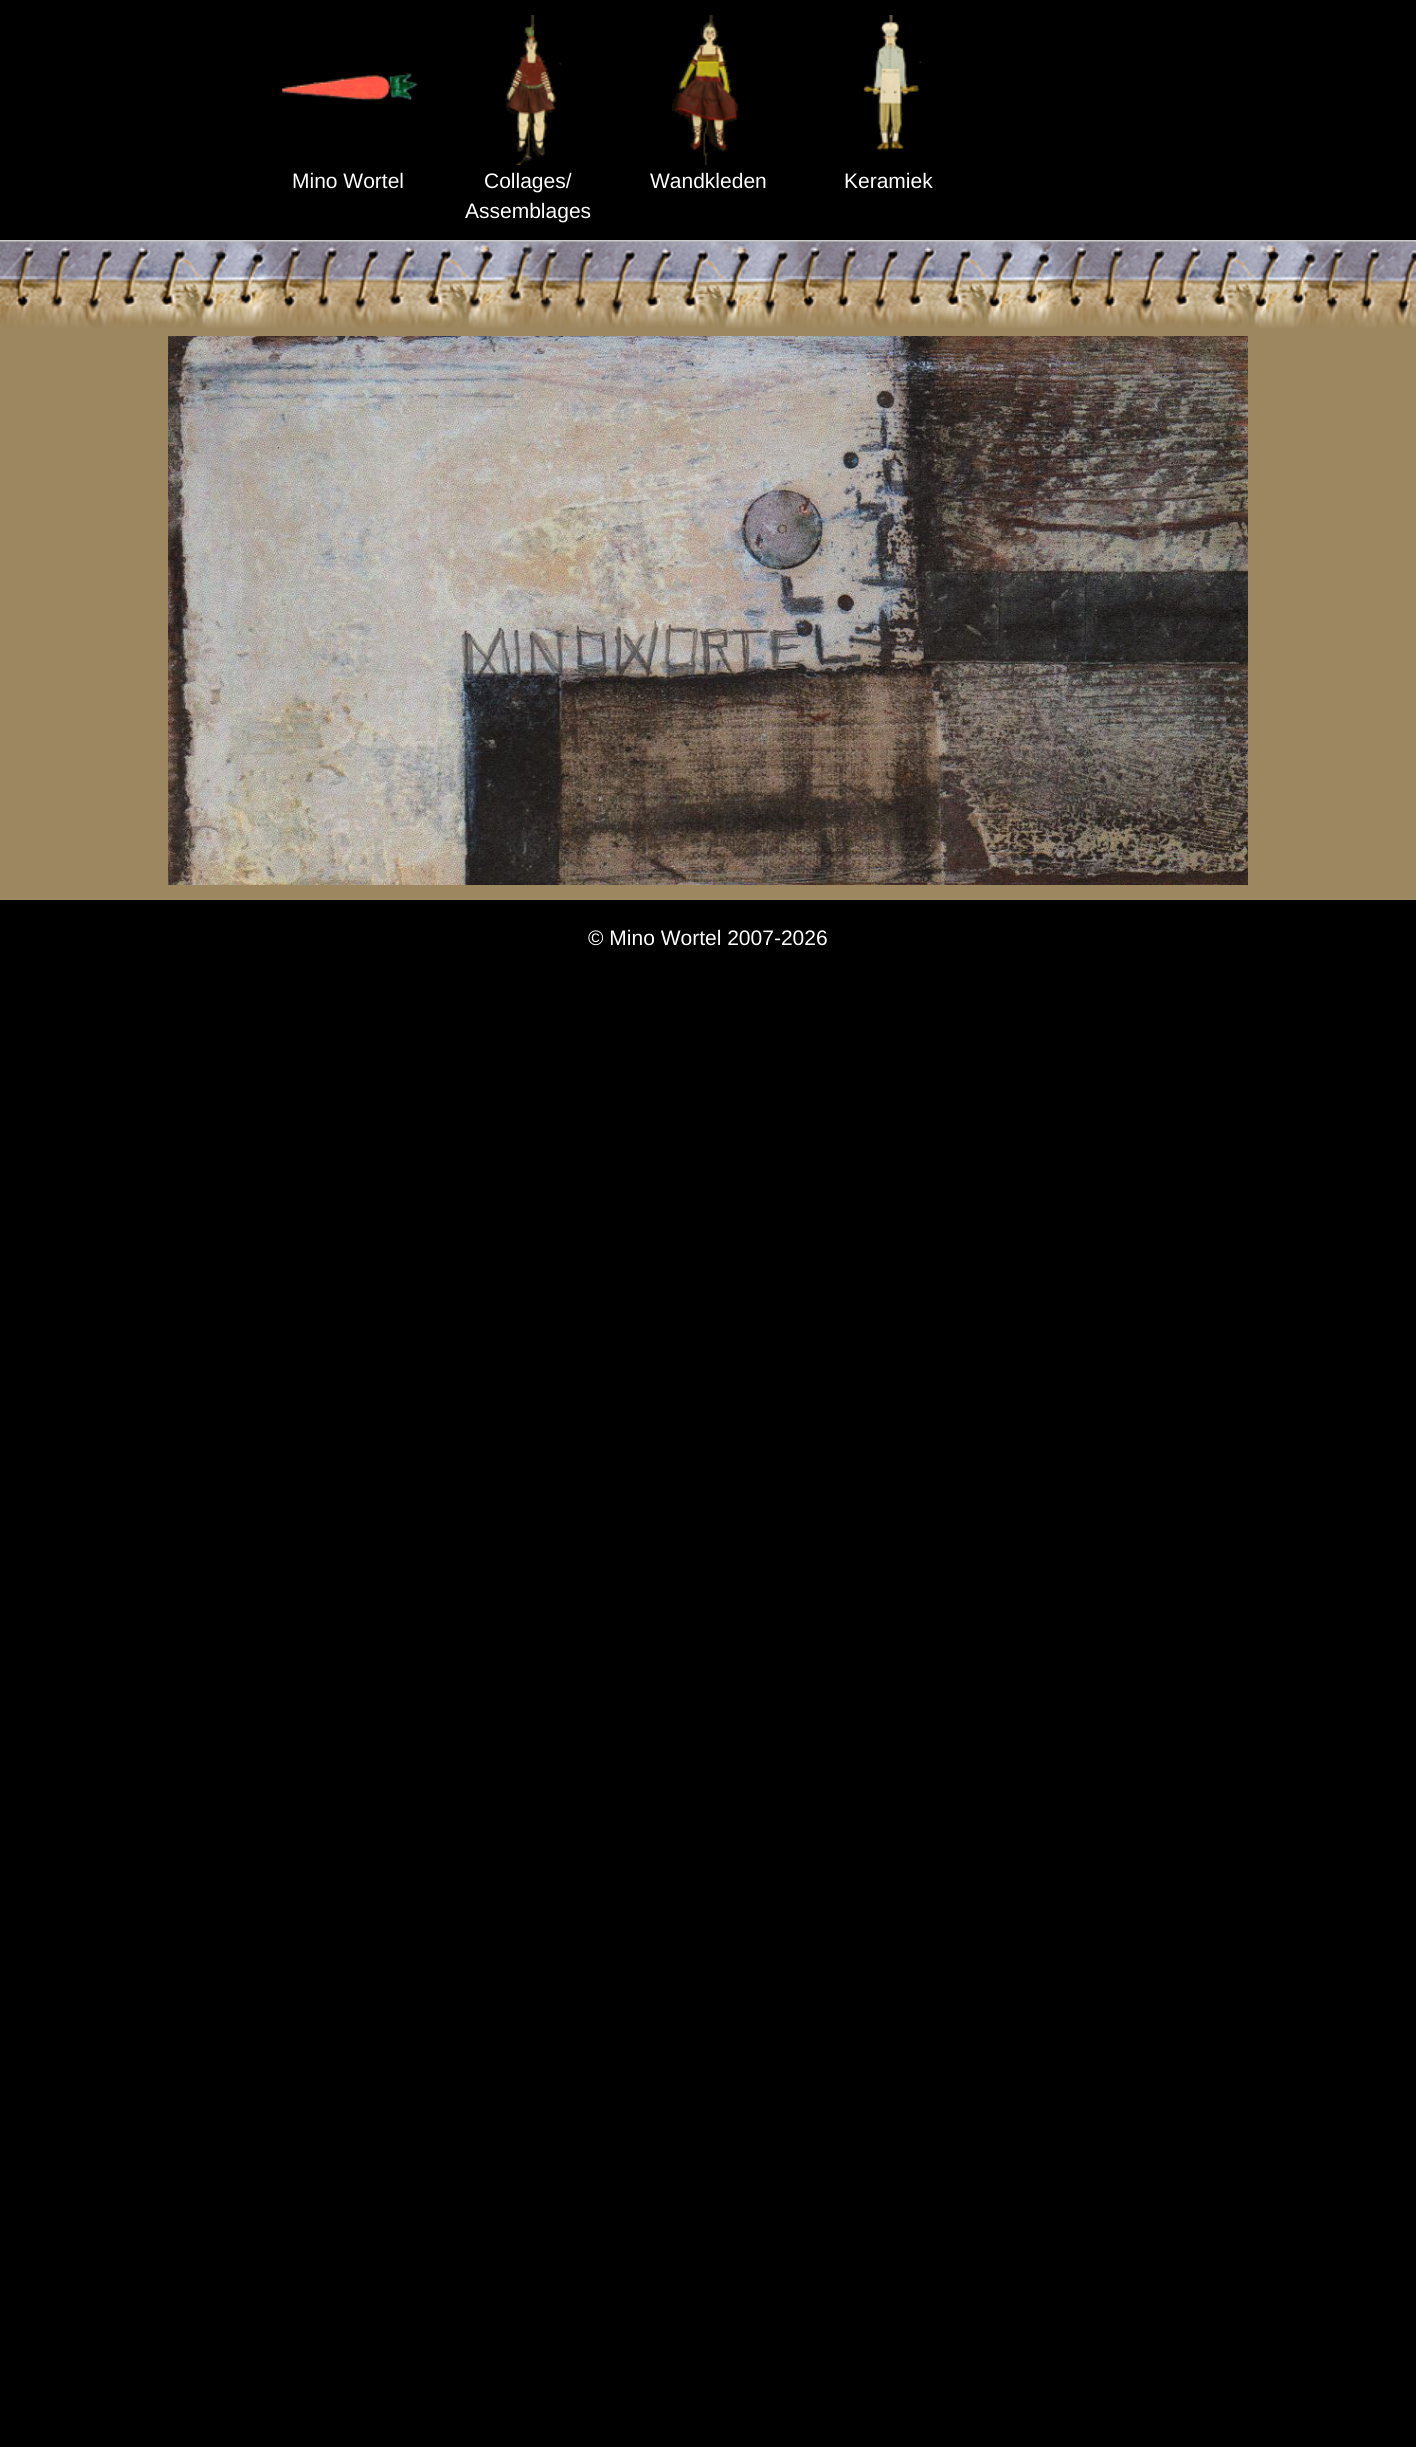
import math
import cairo

surface = cairo.ImageSurface(cairo.FORMAT_RGB24, 1416, 2447)
cr = cairo.Context(surface)
options = cairo.FontOptions()
options.set_hint_metrics(cairo.HINT_METRICS_OFF)
options.set_hint_style(cairo.HINT_STYLE_NONE)
cr.set_font_options(options)
cr.set_miter_limit(4)


def rgb(code):
    cr.set_source_rgb(*(v / 255 for v in bytes.fromhex(code[-6:])))


def image(path, x, y, w, h):
    cr.save()
    cr.set_source_surface(cairo.ImageSurface.create_from_png(path), x, y)
    cr.rectangle(x, y, w, h)
    cr.fill()
    cr.restore()


rgb("#000000")
cr.paint()
image("img/1.png", 281, 73, 137, 28)
image("img/2.png", 505, 15, 57, 150)
image("img/3.png", 672, 15, 66, 150)
image("img/4.png", 863, 15, 59, 136)
rgb("#9d8760")
cr.rectangle(0, 328, 1416, 572)
cr.fill()
image("img/5.png", 0, 240, 1416, 88)
image("img/6.png", 168, 336, 1080, 549)
cr.select_font_face("Liberation Sans")
cr.set_font_size(21)
rgb("#ffffff")
for x, y, s in [
    (292, 188, "Mino Wortel"),
    (484, 188, "Collages/"),
    (465, 218, "Assemblages"),
    (650, 188, "Wandkleden"),
    (844, 188, "Keramiek"),
    (588, 945, "© Mino Wortel 2007-2026"),
]:
    cr.move_to(x, y)
    cr.show_text(s)
surface.write_to_png("page.png")
